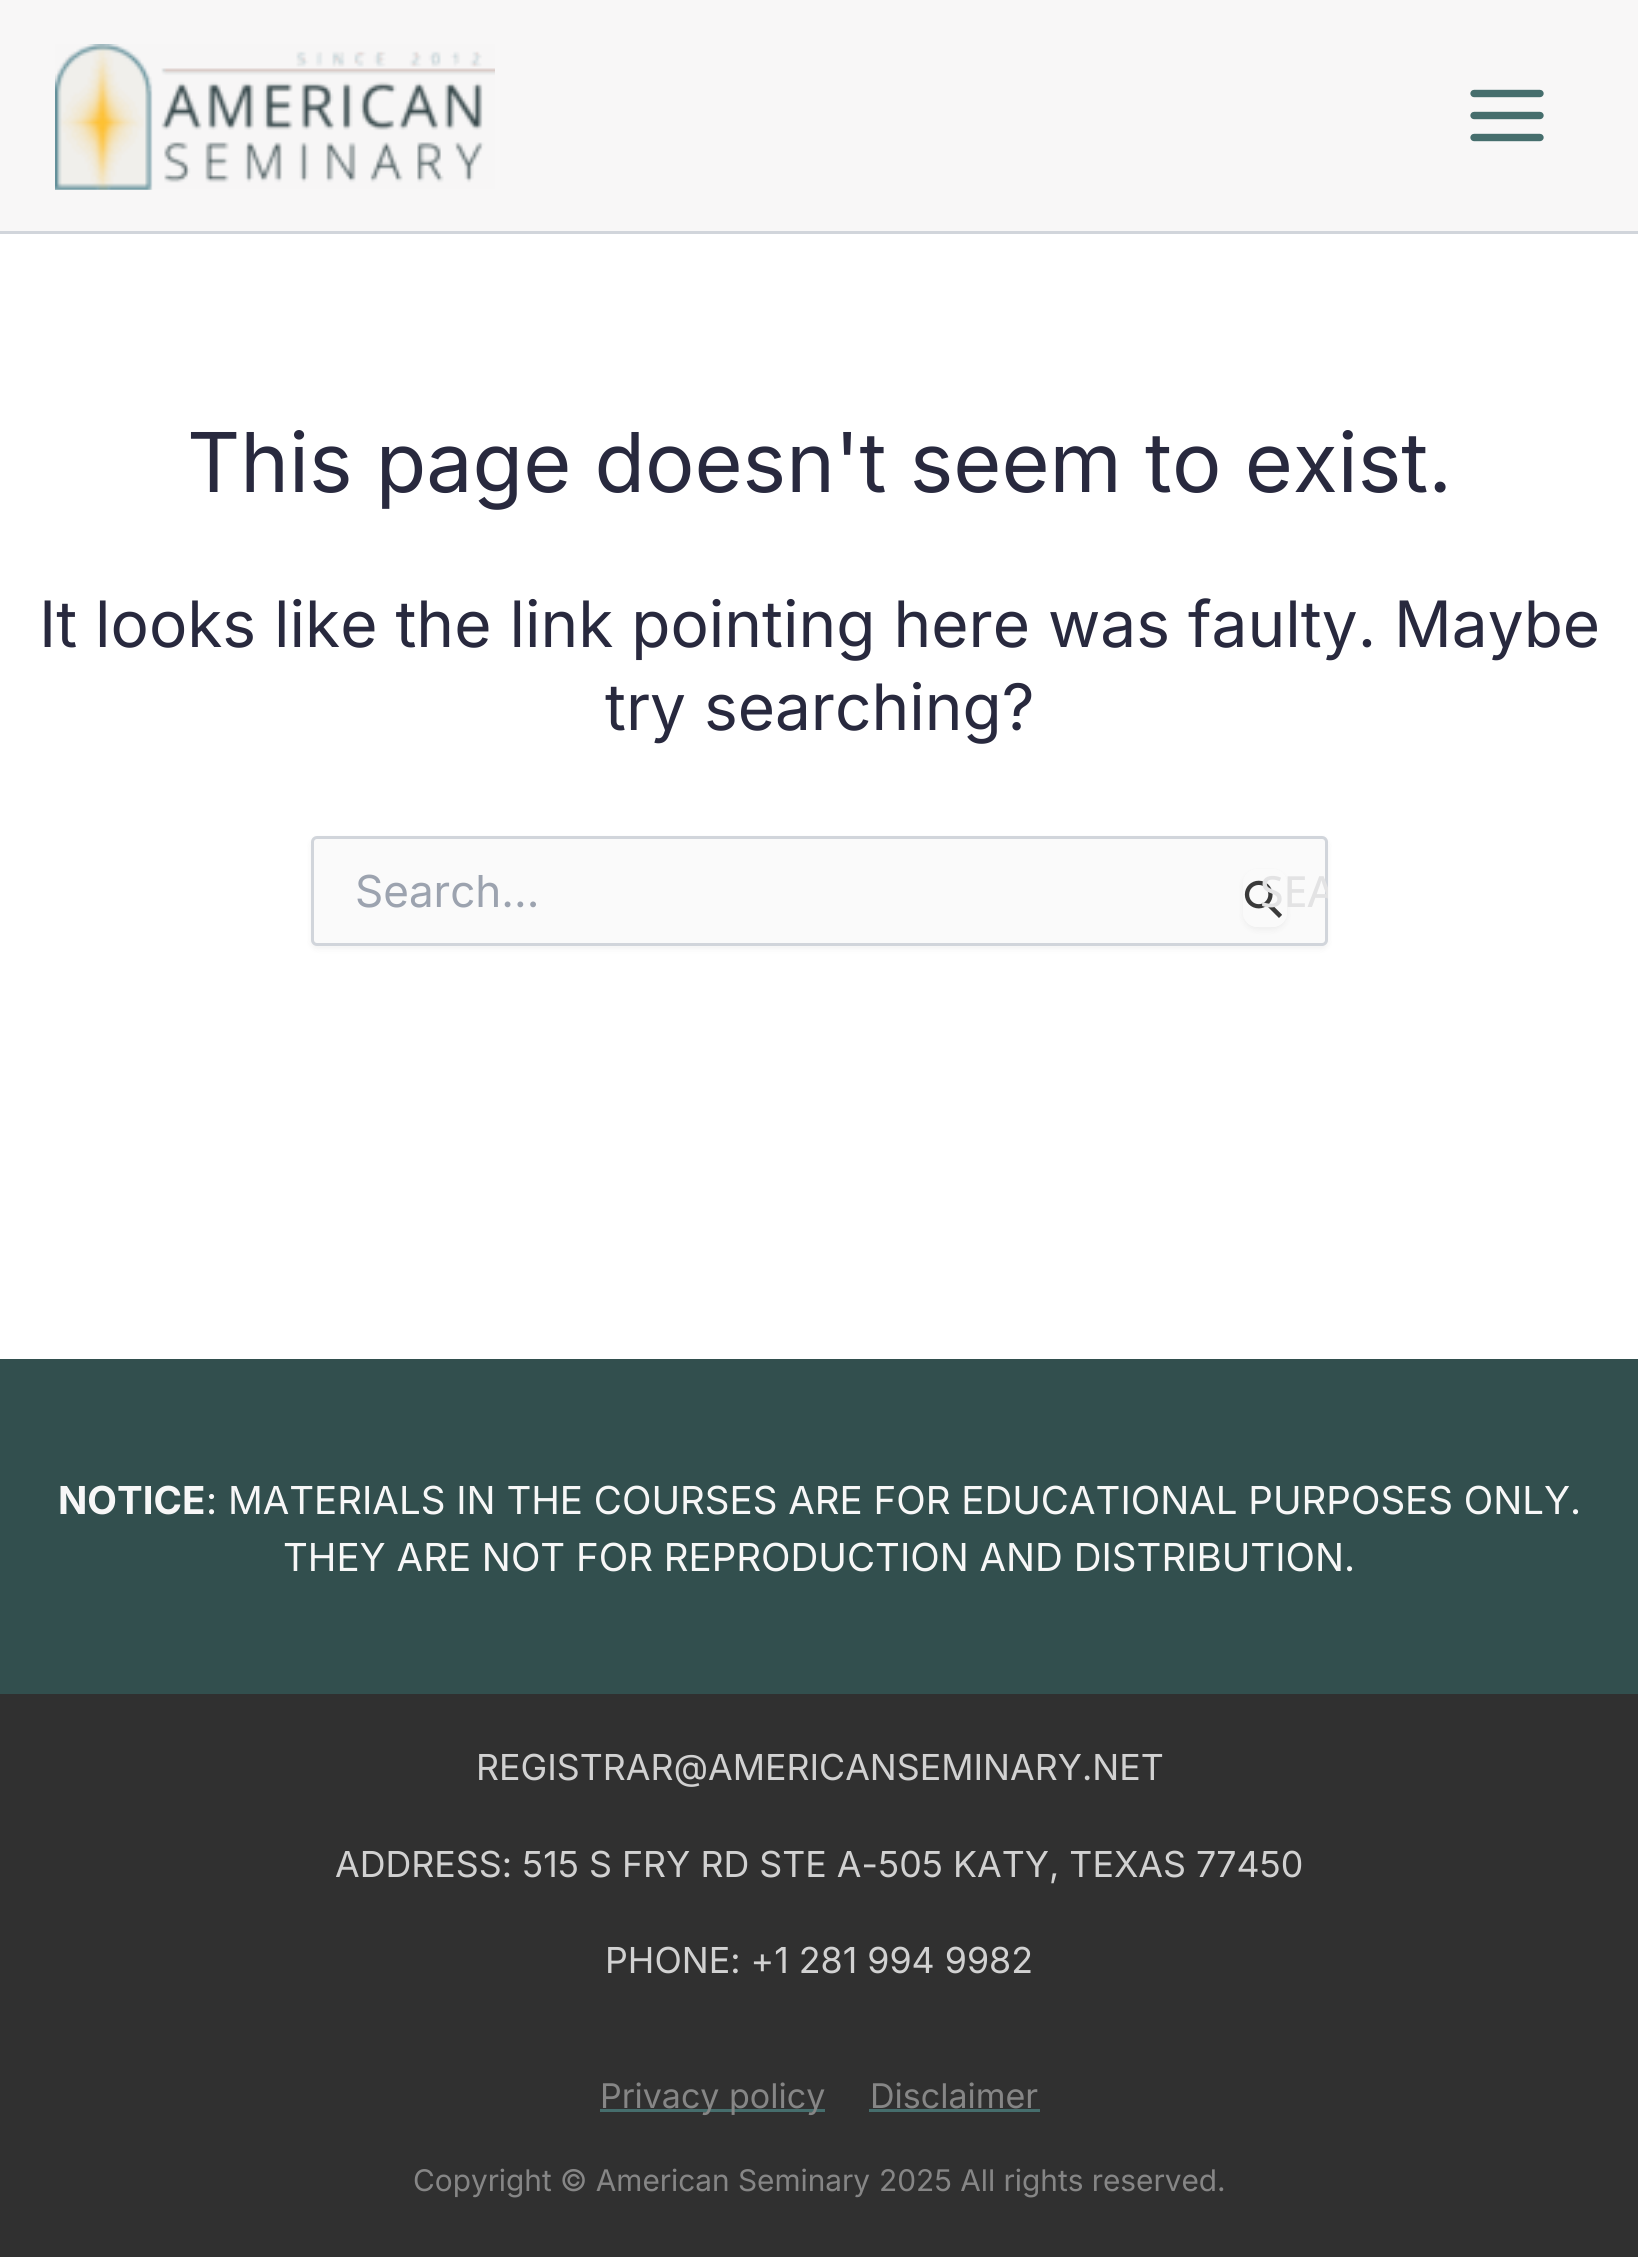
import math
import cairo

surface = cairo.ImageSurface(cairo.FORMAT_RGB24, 1638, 2257)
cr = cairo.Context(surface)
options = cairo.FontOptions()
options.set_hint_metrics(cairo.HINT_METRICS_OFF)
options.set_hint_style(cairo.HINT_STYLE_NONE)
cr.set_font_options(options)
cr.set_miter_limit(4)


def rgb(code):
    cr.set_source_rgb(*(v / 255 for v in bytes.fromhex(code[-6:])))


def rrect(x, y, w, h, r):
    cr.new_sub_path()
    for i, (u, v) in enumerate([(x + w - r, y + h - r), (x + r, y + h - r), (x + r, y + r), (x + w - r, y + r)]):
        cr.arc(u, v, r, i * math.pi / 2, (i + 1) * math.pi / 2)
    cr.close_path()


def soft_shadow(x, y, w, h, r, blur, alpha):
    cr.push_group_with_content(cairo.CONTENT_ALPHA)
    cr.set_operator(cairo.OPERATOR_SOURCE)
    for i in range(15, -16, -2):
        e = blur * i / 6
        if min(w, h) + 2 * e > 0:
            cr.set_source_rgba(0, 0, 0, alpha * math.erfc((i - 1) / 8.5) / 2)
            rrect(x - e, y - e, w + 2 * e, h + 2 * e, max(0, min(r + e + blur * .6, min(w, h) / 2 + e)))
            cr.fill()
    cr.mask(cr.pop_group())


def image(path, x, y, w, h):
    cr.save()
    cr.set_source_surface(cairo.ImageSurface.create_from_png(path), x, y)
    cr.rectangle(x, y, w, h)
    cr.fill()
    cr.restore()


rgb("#ffffff")
cr.paint()
rgb("#f8f7f7")
cr.rectangle(0, 0, 1638, 231)
cr.fill()
rgb("#d1d5db")
cr.rectangle(0, 231, 1638, 3)
cr.fill()
image("img/1.png", 55, 44, 440, 146)
image("img/2.png", 1470, 89, 74, 53)
rgb("#000000")
soft_shadow(311, 839, 1017, 110, 6, 3, 0.05)
rgb("#fafafa")
rrect(312.5, 837.5, 1014, 107, 4.5)
cr.fill_preserve()
rgb("#d1d5db")
cr.set_line_width(3)
cr.stroke()
cr.save()
cr.set_fill_rule(cairo.FILL_RULE_EVEN_ODD)
cr.new_path()
cr.move_to(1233, 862)
cr.line_to(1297, 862)
cr.line_to(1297, 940)
cr.line_to(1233, 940)
cr.close_path()
cr.move_to(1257, 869)
cr.line_to(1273, 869)
cr.curve_to(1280.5, 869, 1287, 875.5, 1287, 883)
cr.line_to(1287, 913)
cr.curve_to(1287, 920.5, 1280.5, 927, 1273, 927)
cr.line_to(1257, 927)
cr.curve_to(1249.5, 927, 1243, 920.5, 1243, 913)
cr.line_to(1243, 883)
cr.curve_to(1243, 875.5, 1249.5, 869, 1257, 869)
cr.close_path()
cr.clip()
rgb("#000000")
soft_shadow(1243, 872, 44, 58, 14, 3, 0.05)
cr.restore()
image("img/3.png", 1244, 880, 38, 38)
for x, y, w, h, color in [
    (0, 1359, 1638, 335, "#324f4e"),
    (0, 1694, 1638, 563, "#303030"),
    (600, 2109, 225, 3, "#466e6d"),
    (869, 2109, 171, 3, "#466e6d"),
]:
    rgb(color)
    cr.rectangle(x, y, w, h)
    cr.fill()
cr.select_font_face("Inter")
cr.set_font_size(82.5)
rgb("#28293e")
cr.move_to(187, 492)
cr.show_text("This page doesn't seem to exist.")
cr.set_font_size(63.95)
cr.move_to(39, 647)
cr.show_text("It looks like the link pointing here was faulty. Maybe")
cr.move_to(605, 730)
cr.show_text("try searching?")
cr.set_font_size(44)
rgb("#9ca3af")
cr.move_to(355, 907)
cr.show_text("Search...")
cr.save()
rrect(1205, 836, 123, 113, 6)
cr.clip()
cr.select_font_face("Open Sans Medium")
cr.set_font_size(43)
rgb("#e3e3e4")
cr.move_to(1260, 907)
cr.show_text("SEA")
cr.restore()
cr.select_font_face("Inter", cairo.FONT_SLANT_NORMAL, cairo.FONT_WEIGHT_BOLD)
cr.set_font_size(38.5)
rgb("#f7f7f7")
cr.move_to(58, 1514)
cr.show_text("NOTICE")
cr.select_font_face("Inter")
cr.move_to(206, 1514)
cr.show_text(": MATERIALS IN THE COURSES ARE FOR EDUCATIONAL PURPOSES ONLY.")
cr.move_to(283, 1571)
cr.show_text("THEY ARE NOT FOR REPRODUCTION AND DISTRIBUTION.")
cr.set_font_size(35.75)
rgb("#d1d1d1")
for x, y, s in [
    (476, 1780, "REGISTRAR@AMERICANSEMINARY.NET"),
    (335, 1877, "ADDRESS: 515 S FRY RD STE A-505 KATY, TEXAS 77450"),
    (605, 1973, "PHONE: +1 281 994 9982"),
]:
    cr.move_to(x, y)
    cr.show_text(s)
cr.set_font_size(34)
rgb("#868686")
cr.move_to(600, 2108)
cr.show_text("Privacy policy")
cr.move_to(870, 2108)
cr.show_text("Disclaimer")
cr.set_font_size(29.8)
cr.move_to(413, 2191)
cr.show_text("Copyright © American Seminary")
cr.move_to(879, 2191)
cr.show_text("2025 All rights reserved.")
surface.write_to_png("page.png")
